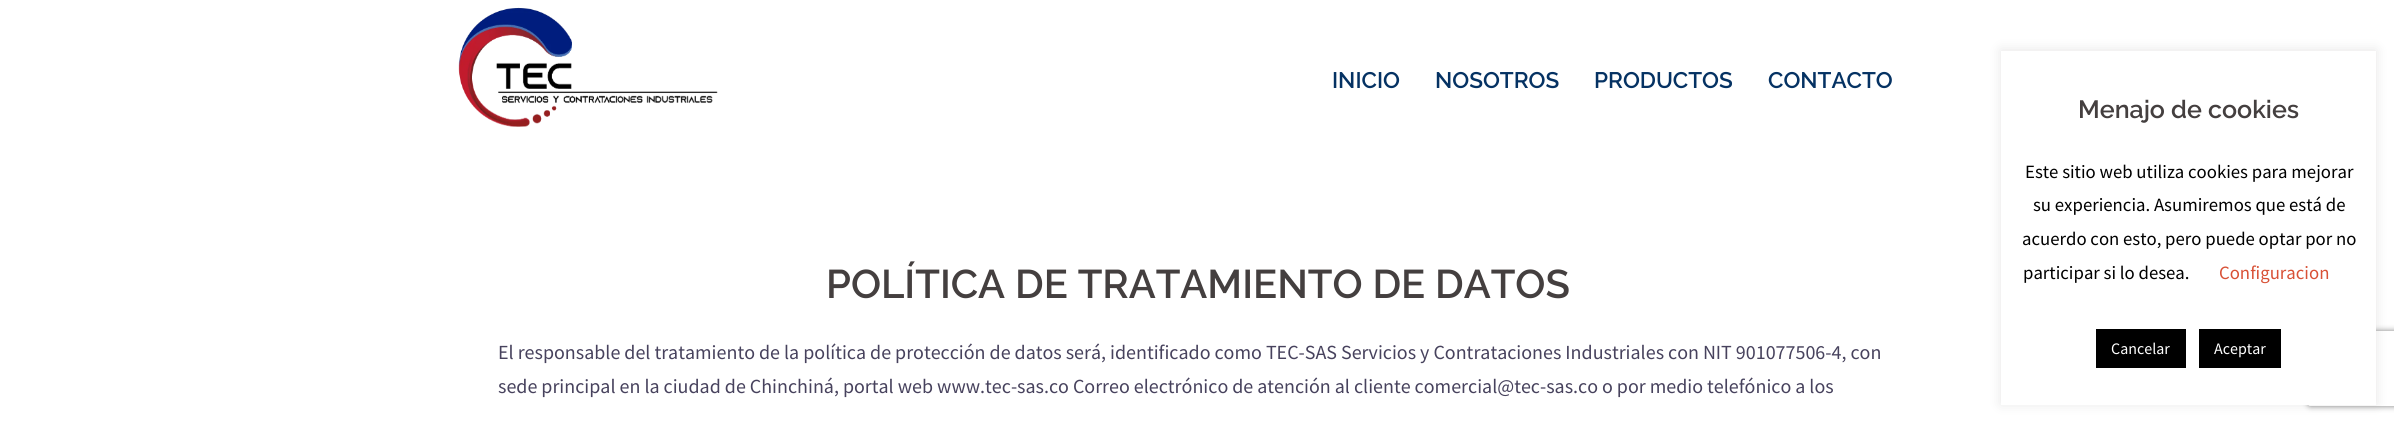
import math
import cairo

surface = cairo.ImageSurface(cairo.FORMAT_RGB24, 2394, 423)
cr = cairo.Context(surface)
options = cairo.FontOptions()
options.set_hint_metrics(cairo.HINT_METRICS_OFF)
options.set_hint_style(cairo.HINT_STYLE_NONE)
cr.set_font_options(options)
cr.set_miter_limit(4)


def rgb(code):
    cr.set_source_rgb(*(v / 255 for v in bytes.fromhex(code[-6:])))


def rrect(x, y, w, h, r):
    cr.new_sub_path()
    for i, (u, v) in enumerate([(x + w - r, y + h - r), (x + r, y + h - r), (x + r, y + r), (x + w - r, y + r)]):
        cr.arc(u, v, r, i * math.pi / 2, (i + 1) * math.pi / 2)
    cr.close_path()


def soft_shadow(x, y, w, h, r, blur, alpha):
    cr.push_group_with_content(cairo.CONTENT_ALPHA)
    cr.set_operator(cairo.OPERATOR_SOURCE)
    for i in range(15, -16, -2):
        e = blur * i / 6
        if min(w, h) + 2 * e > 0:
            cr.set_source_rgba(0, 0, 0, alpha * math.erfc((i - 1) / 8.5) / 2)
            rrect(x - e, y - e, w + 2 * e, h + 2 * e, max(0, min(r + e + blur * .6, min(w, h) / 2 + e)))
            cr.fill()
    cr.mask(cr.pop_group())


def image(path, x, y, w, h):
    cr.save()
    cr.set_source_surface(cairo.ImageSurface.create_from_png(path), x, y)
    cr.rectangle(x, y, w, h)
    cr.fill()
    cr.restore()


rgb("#ffffff")
cr.paint()
image("img/1.png", 458, 7, 260, 120)
rgb("#acabab")
soft_shadow(2001, 50, 375, 354, 0, 6, 0.3)
cr.save()
cr.set_fill_rule(cairo.FILL_RULE_EVEN_ODD)
cr.new_path()
cr.move_to(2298, 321)
cr.line_to(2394, 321)
cr.line_to(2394, 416)
cr.line_to(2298, 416)
cr.close_path()
cr.move_to(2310.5, 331)
cr.line_to(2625.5, 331)
cr.curve_to(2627, 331, 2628, 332, 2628, 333.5)
cr.line_to(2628, 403.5)
cr.curve_to(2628, 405, 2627, 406, 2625.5, 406)
cr.line_to(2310.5, 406)
cr.curve_to(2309, 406, 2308, 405, 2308, 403.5)
cr.line_to(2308, 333.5)
cr.curve_to(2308, 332, 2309, 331, 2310.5, 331)
cr.close_path()
cr.clip()
rgb("#808080")
soft_shadow(2308, 331, 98, 75, 2.5, 3, 1)
cr.restore()
for x, y, w, h, color in [
    (2001, 51, 375, 354, "#ffffff"),
    (2096, 329, 90, 39, "#000000"),
    (2199, 329, 82, 39, "#000000"),
]:
    rgb(color)
    cr.rectangle(x, y, w, h)
    cr.fill()
cr.select_font_face("Raleway SemiBold")
cr.set_font_size(22.5)
rgb("#053263")
for x, y, s in [
    (1332, 88, "INICIO"),
    (1435, 88, "NOSOTROS"),
    (1594, 88, "PRODUCTOS"),
    (1768, 88, "CONTACTO"),
]:
    cr.move_to(x, y)
    cr.show_text(s)
cr.set_font_size(40)
rgb("#443f3f")
cr.move_to(826, 298)
cr.show_text("POLÍTICA DE TRATAMIENTO DE DATOS")
cr.select_font_face("Source Sans Pro")
cr.set_font_size(20)
rgb("#47425d")
cr.move_to(498, 359)
cr.show_text("El responsable del tratamiento de la política de protección de datos será, identificado como TEC-SAS Servicios y Contrataciones Industriales con NIT 901077506-4, con")
cr.move_to(498, 393)
cr.show_text("sede principal en la ciudad de Chinchiná, portal web www.tec-sas.co Correo electrónico de atención al cliente comercial@tec-sas.co o por medio telefónico a los")
cr.select_font_face("Raleway SemiBold")
cr.set_font_size(25)
rgb("#443f3f")
cr.move_to(2078, 118)
cr.show_text("Menajo de cookies")
cr.select_font_face("Source Sans Pro")
cr.set_font_size(18.75)
rgb("#000000")
for x, y, s in [
    (2025, 178, "Este sitio web utiliza cookies para mejorar"),
    (2033, 211, "su experiencia. Asumiremos que está de"),
    (2022, 245, "acuerdo con esto, pero puede optar por no"),
    (2023, 279, "participar si lo desea."),
]:
    cr.move_to(x, y)
    cr.show_text(s)
rgb("#d85136")
cr.move_to(2219, 279)
cr.show_text("Configuracion")
cr.set_font_size(16)
rgb("#ffffff")
cr.move_to(2111, 354)
cr.show_text("Cancelar")
cr.move_to(2214, 354)
cr.show_text("Aceptar")
surface.write_to_png("page.png")
